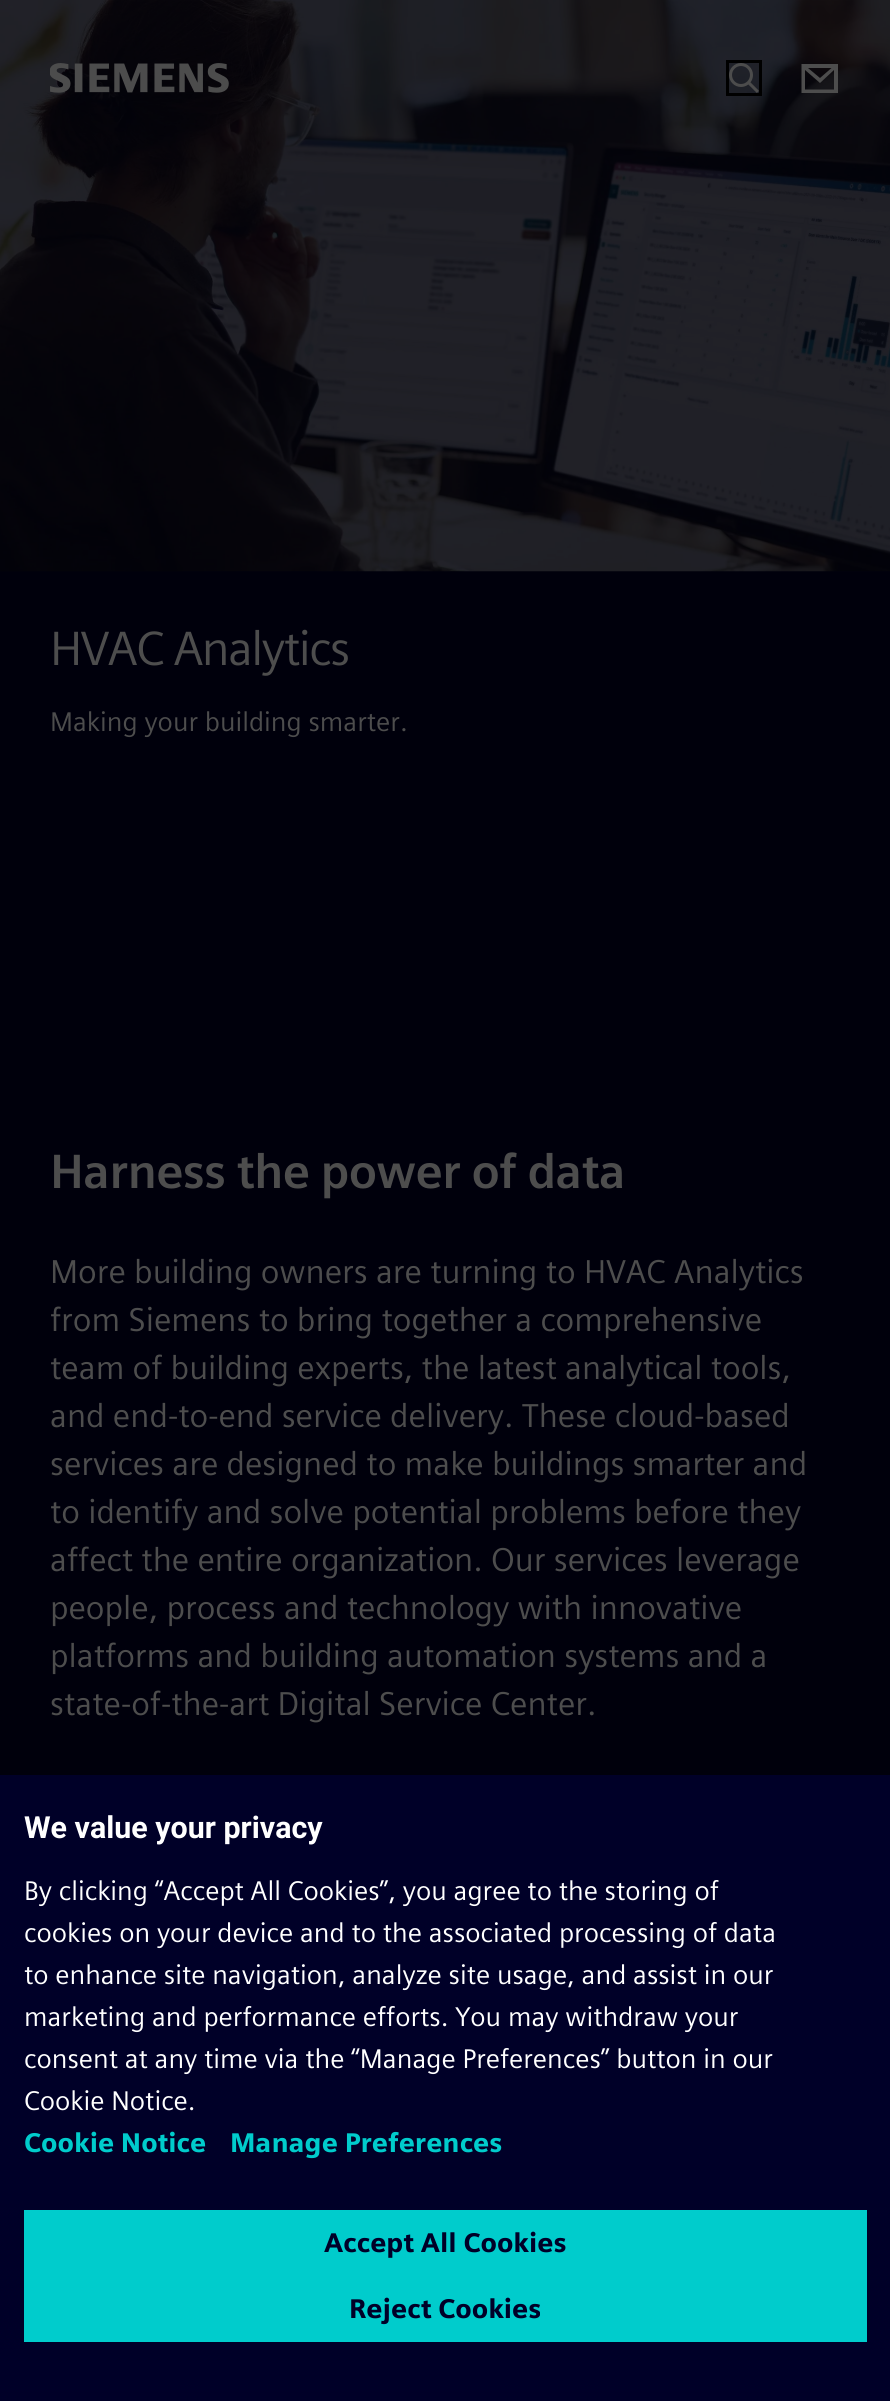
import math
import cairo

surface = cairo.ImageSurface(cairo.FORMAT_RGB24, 890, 2401)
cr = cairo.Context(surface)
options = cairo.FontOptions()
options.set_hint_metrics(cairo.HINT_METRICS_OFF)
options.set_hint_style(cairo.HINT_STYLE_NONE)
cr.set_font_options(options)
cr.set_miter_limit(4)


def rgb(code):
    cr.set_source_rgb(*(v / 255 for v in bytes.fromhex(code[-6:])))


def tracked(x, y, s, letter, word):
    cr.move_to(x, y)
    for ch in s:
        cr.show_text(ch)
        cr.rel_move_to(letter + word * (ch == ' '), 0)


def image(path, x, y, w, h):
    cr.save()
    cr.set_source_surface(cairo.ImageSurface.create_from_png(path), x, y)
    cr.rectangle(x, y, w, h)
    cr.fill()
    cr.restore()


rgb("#00000c")
cr.paint()
image("img/3.png", 0, 0, 890, 572)
image("img/1.png", 50, 63, 179, 30)
image("img/2.png", 729, 63, 30, 30)
cr.rectangle(727.5, 61.5, 33, 33)
rgb("#000000")
cr.set_line_width(3)
cr.stroke()
rgb("#4d4d4d")
cr.set_fill_rule(cairo.FILL_RULE_EVEN_ODD)
cr.new_path()
cr.move_to(801.5, 64)
cr.line_to(801.5, 93)
cr.line_to(838, 93)
cr.line_to(838, 64)
cr.close_path()
cr.move_to(831.5, 68)
cr.line_to(820, 78)
cr.line_to(808, 68)
cr.close_path()
cr.move_to(805, 70)
cr.line_to(805, 89.5)
cr.line_to(834, 89.5)
cr.line_to(834, 70)
cr.line_to(820, 83)
cr.close_path()
cr.fill()
rgb("#000028")
cr.rectangle(0, 1775, 890, 626)
cr.fill()
rgb("#00cccc")
cr.rectangle(24, 2210, 843, 132)
cr.fill()
cr.select_font_face("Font")
cr.set_font_size(48)
rgb("#4d4d4d")
tracked(50, 665, "HVAC Analytics", -1.5, 0)
cr.set_font_size(27)
cr.move_to(50, 731)
cr.show_text("Making your building smarter.")
cr.select_font_face("Font SemiBold")
cr.set_font_size(48)
tracked(50, 1188, "Harness the power of data", -0.75, 0)
cr.select_font_face("Font")
cr.set_font_size(33)
for x, y, s in [
    (50, 1283, "More building owners are turning to HVAC Analytics"),
    (50, 1331, "from Siemens to bring together a comprehensive"),
    (50, 1379, "team of building experts, the latest analytical tools,"),
    (50, 1427, "and end-to-end service delivery. These cloud-based"),
    (50, 1475, "services are designed to make buildings smarter and"),
    (50, 1523, "to identify and solve potential problems before they"),
    (50, 1571, "affect the entire organization. Our services leverage"),
    (50, 1619, "people, process and technology with innovative"),
    (50, 1667, "platforms and building automation systems and a"),
    (50, 1715, "state-of-the-art Digital Service Center."),
]:
    cr.move_to(x, y)
    cr.show_text(s)
cr.select_font_face("Roboto", cairo.FONT_SLANT_NORMAL, cairo.FONT_WEIGHT_BOLD)
cr.set_font_size(30.4)
rgb("#ffffff")
cr.move_to(24, 1838)
cr.show_text("We value your privacy")
cr.select_font_face("Font")
cr.set_font_size(27)
for x, y, s in [
    (24, 1900, "By clicking “Accept All Cookies”, you agree to the storing of"),
    (24, 1942, "cookies on your device and to the associated processing of data"),
    (24, 1984, "to enhance site navigation, analyze site usage, and assist in our"),
    (24, 2026, "marketing and performance efforts. You may withdraw your"),
    (24, 2068, "consent at any time via the “Manage Preferences” button in our"),
    (24, 2110, "Cookie Notice."),
]:
    cr.move_to(x, y)
    cr.show_text(s)
cr.select_font_face("Font", cairo.FONT_SLANT_NORMAL, cairo.FONT_WEIGHT_BOLD)
rgb("#00cccc")
cr.move_to(24, 2152)
cr.show_text("Cookie Notice")
cr.move_to(230, 2152)
cr.show_text("Manage Preferences")
rgb("#000028")
cr.move_to(324, 2252)
cr.show_text("Accept All Cookies")
cr.move_to(349, 2318)
cr.show_text("Reject Cookies")
surface.write_to_png("page.png")
